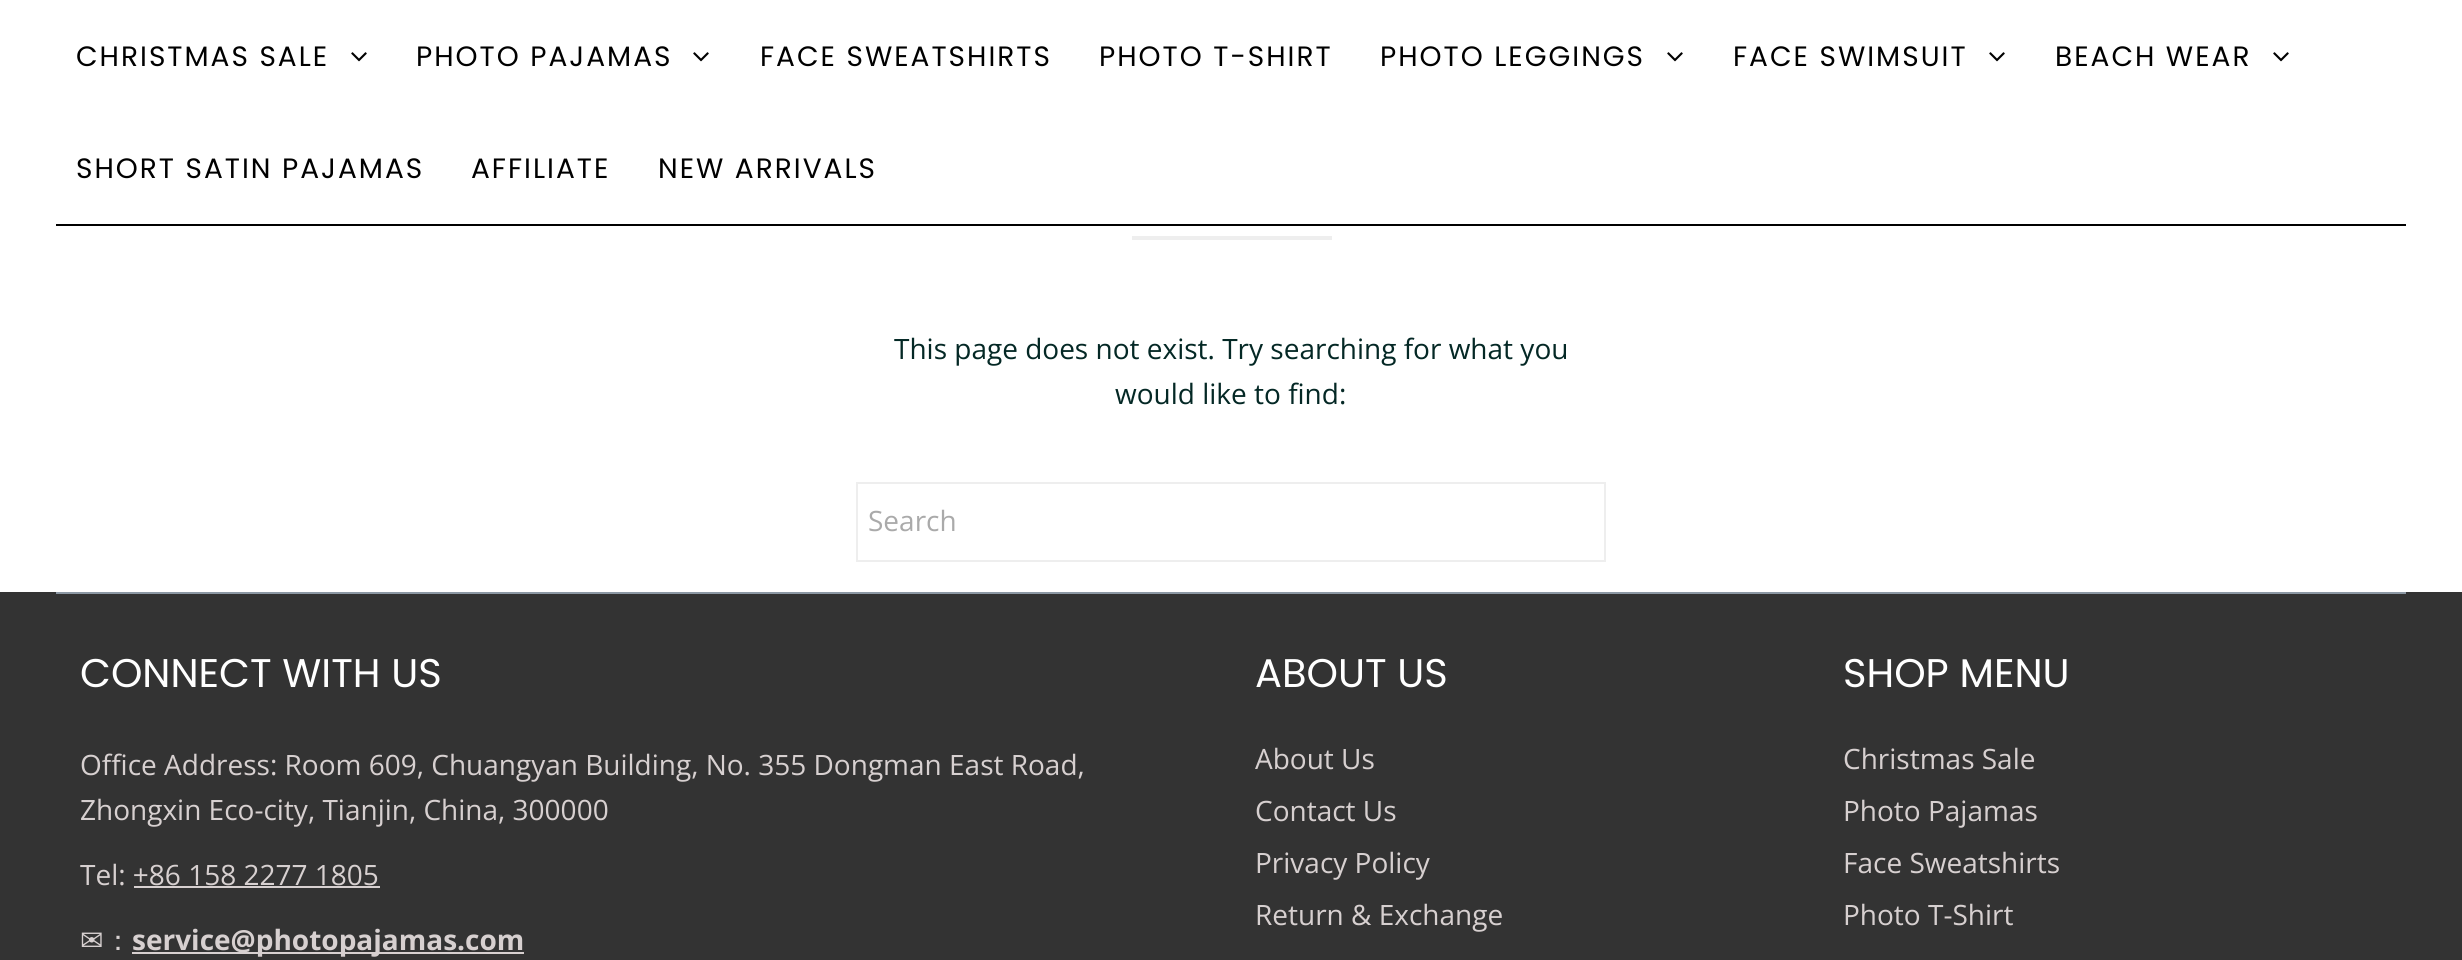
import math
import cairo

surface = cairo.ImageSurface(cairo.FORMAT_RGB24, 2462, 960)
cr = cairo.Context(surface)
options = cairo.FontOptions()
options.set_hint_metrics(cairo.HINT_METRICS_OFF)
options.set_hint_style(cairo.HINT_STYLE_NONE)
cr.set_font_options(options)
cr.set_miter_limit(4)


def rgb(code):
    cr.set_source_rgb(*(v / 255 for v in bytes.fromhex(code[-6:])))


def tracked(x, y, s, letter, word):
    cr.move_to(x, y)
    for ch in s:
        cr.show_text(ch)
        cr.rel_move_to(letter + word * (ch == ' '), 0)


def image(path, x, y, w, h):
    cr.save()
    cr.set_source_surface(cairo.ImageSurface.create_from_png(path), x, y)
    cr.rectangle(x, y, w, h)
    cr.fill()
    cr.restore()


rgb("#ffffff")
cr.paint()
rgb("#000000")
cr.rectangle(56, 224, 2350, 2)
cr.fill()
image("img/1.png", 351, 52, 16, 10)
image("img/1.png", 693, 52, 16, 10)
image("img/1.png", 1667, 52, 16, 10)
image("img/1.png", 1989, 52, 16, 10)
image("img/1.png", 2273, 52, 16, 10)
rgb("#eeeeee")
cr.rectangle(1132, 236, 200, 4)
cr.fill()
cr.rectangle(857, 483, 748, 78)
cr.stroke()
for x, y, w, h, color in [
    (0, 592, 2462, 368, "#333333"),
    (56, 592, 2350, 2, "#8c98a4"),
    (134, 886, 246, 2, "#d7d0d0"),
    (132, 952, 392, 2, "#d7d0d0"),
]:
    rgb(color)
    cr.rectangle(x, y, w, h)
    cr.fill()
cr.select_font_face("Poppins")
cr.set_font_size(28)
rgb("#000000")
for x, y, s in [
    (76, 66, "CHRISTMAS SALE"),
    (416, 66, "PHOTO PAJAMAS"),
    (760, 66, "FACE SWEATSHIRTS"),
    (1099, 66, "PHOTO T-SHIRT"),
    (1380, 66, "PHOTO LEGGINGS"),
    (1733, 66, "FACE SWIMSUIT"),
    (2055, 66, "BEACH WEAR"),
    (76, 178, "SHORT SATIN PAJAMAS"),
    (471, 178, "AFFILIATE"),
    (658, 178, "NEW ARRIVALS"),
]:
    tracked(x, y, s, 2, 0)
cr.select_font_face("Open Sans")
rgb("#042825")
cr.move_to(894, 359)
cr.show_text("This page does not exist. Try searching for what you")
cr.move_to(1115, 404)
cr.show_text("would like to find:")
rgb("#aaaaaa")
cr.move_to(868, 531)
cr.show_text("Search")
cr.select_font_face("Poppins")
cr.set_font_size(40)
rgb("#ffffff")
cr.move_to(80, 687)
cr.show_text("CONNECT WITH US")
cr.select_font_face("Open Sans")
cr.set_font_size(28)
rgb("#d7d0d0")
for x, y, s in [
    (80, 775, "Office Address: Room 609, Chuangyan Building, No. 355 Dongman East Road,"),
    (80, 820, "Zhongxin Eco-city, Tianjin, China, 300000"),
    (80, 885, "Tel: +86 158 2277 1805"),
]:
    cr.move_to(x, y)
    cr.show_text(s)
cr.select_font_face("DejaVu Sans")
cr.move_to(80, 950)
cr.show_text("✉")
cr.select_font_face("WenQuanYi Zen Hei Medium")
cr.move_to(104, 950)
cr.show_text("：")
cr.select_font_face("Open Sans", cairo.FONT_SLANT_NORMAL, cairo.FONT_WEIGHT_BOLD)
cr.move_to(132, 950)
cr.show_text("service@photopajamas.com")
cr.select_font_face("Poppins")
cr.set_font_size(40)
rgb("#ffffff")
cr.move_to(1255, 687)
cr.show_text("ABOUT US")
cr.select_font_face("Open Sans")
cr.set_font_size(28)
rgb("#d7d0d0")
for x, y, s in [
    (1255, 769, "About Us"),
    (1255, 821, "Contact Us"),
    (1255, 873, "Privacy Policy"),
    (1255, 925, "Return & Exchange"),
]:
    cr.move_to(x, y)
    cr.show_text(s)
cr.select_font_face("Poppins")
cr.set_font_size(40)
rgb("#ffffff")
cr.move_to(1843, 687)
cr.show_text("SHOP MENU")
cr.select_font_face("Open Sans")
cr.set_font_size(28)
rgb("#d7d0d0")
for x, y, s in [
    (1843, 769, "Christmas Sale"),
    (1843, 821, "Photo Pajamas"),
    (1843, 873, "Face Sweatshirts"),
    (1843, 925, "Photo T-Shirt"),
]:
    cr.move_to(x, y)
    cr.show_text(s)
surface.write_to_png("page.png")
